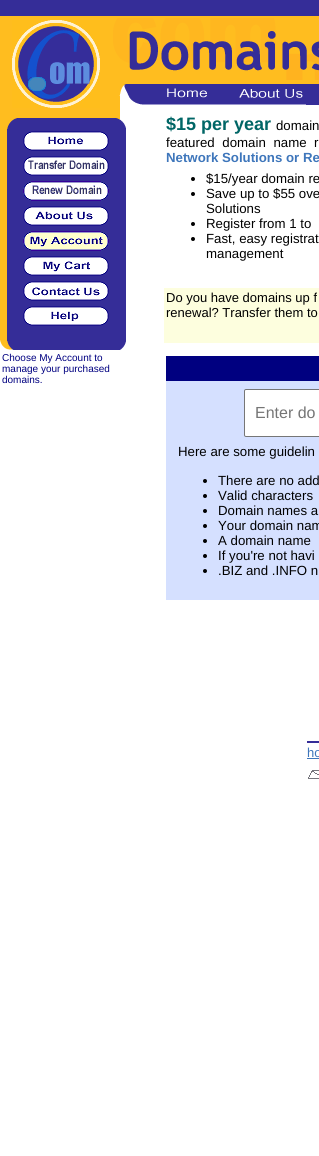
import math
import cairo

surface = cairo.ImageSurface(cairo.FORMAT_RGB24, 319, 1156)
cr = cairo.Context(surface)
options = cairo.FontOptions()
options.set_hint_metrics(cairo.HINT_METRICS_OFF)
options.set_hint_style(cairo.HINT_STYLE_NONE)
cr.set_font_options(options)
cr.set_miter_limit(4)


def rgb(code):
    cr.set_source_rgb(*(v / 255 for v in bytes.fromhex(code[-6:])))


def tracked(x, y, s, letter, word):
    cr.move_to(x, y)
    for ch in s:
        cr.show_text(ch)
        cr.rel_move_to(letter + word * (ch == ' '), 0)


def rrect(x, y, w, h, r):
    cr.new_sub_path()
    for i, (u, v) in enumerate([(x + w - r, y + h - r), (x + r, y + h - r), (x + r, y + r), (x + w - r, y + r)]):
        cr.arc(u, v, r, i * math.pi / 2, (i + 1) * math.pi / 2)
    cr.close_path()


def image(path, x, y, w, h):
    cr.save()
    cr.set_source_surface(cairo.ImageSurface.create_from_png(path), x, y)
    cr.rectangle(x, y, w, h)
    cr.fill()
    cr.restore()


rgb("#ffffff")
cr.paint()
rgb("#352d98")
cr.rectangle(0, 0, 319, 16)
cr.fill()
rgb("#ffbd1f")
cr.rectangle(0, 16, 113, 95)
cr.fill()
image("img/1.png", 12, 20, 88, 88)
cr.rectangle(113, 16, 206, 68)
cr.fill()
image("img/2.png", 113, 18, 206, 62)
image("img/3.png", 113, 84, 97, 27)
image("img/4.png", 210, 84, 96, 21)
rgb("#352d98")
cr.rectangle(306, 84, 13, 21)
cr.fill()
rgb("#ffbd1f")
cr.rectangle(0, 131, 7, 200)
cr.fill()
image("img/5.png", 0, 111, 126, 20)
rgb("#352d98")
cr.rectangle(7, 131, 119, 200)
cr.fill()
image("img/6.png", 23, 131, 86, 20)
image("img/7.png", 23, 156, 86, 20)
image("img/8.png", 23, 181, 86, 20)
image("img/9.png", 23, 206, 86, 20)
image("img/10.png", 23, 231, 86, 20)
image("img/11.png", 23, 256, 86, 20)
image("img/12.png", 23, 281, 86, 20)
image("img/13.png", 23, 306, 86, 20)
image("img/14.png", 0, 331, 126, 19)
rgb("#000000")
cr.arc(193, 179, 2, 0, 2 * math.pi)
cr.fill()
cr.arc(193, 194, 2, 0, 2 * math.pi)
cr.fill()
cr.arc(193, 224, 2, 0, 2 * math.pi)
cr.fill()
cr.arc(193, 239, 2, 0, 2 * math.pi)
cr.fill()
for x, y, w, h, color in [
    (164, 288, 155, 55, "#fdfede"),
    (166, 381, 153, 219, "#d5e0ff"),
    (166, 356, 153, 25, "#000080"),
]:
    rgb(color)
    cr.rectangle(x, y, w, h)
    cr.fill()
rgb("#ffffff")
rrect(244.5, 389.5, 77, 47, 1.5)
cr.fill_preserve()
rgb("#767676")
cr.set_line_width(1)
cr.stroke()
rgb("#000000")
cr.arc(205, 481, 2, 0, 2 * math.pi)
cr.fill()
cr.arc(205, 496, 2, 0, 2 * math.pi)
cr.fill()
cr.arc(205, 511, 2, 0, 2 * math.pi)
cr.fill()
cr.arc(205, 526, 2, 0, 2 * math.pi)
cr.fill()
cr.arc(205, 541, 2, 0, 2 * math.pi)
cr.fill()
cr.arc(205, 556, 2, 0, 2 * math.pi)
cr.fill()
cr.arc(205, 571, 2, 0, 2 * math.pi)
cr.fill()
rgb("#352d98")
cr.rectangle(307, 741, 12, 2)
cr.fill()
rgb("#3e76bb")
cr.rectangle(307, 758, 12, 1)
cr.fill()
image("img/15.png", 308, 770, 11, 9)
cr.select_font_face("Liberation Sans")
cr.set_font_size(10)
rgb("#000080")
for x, y, s in [
    (2, 361, "Choose My Account to"),
    (2, 372, "manage your purchased"),
    (2, 383, "domains."),
]:
    cr.move_to(x, y)
    cr.show_text(s)
cr.select_font_face("Liberation Sans", cairo.FONT_SLANT_NORMAL, cairo.FONT_WEIGHT_BOLD)
cr.set_font_size(18)
rgb("#006666")
cr.move_to(166, 130)
cr.show_text("$15 per year")
cr.select_font_face("Liberation Sans")
cr.set_font_size(13.25)
rgb("#000000")
cr.move_to(276, 130)
cr.show_text("domain")
tracked(166, 147, "featured domain name", 0, 4)
tracked(314, 147, "r", 0, 4)
cr.select_font_face("Liberation Sans", cairo.FONT_SLANT_NORMAL, cairo.FONT_WEIGHT_BOLD)
rgb("#3e76bb")
cr.move_to(166, 162)
cr.show_text("Network Solutions or Re")
cr.select_font_face("Liberation Sans")
rgb("#000000")
for x, y, s in [
    (206, 183, "$15/year domain re"),
    (206, 198, "Save up to $55 ove"),
    (206, 213, "Solutions"),
    (206, 228, "Register from 1 to"),
    (206, 243, "Fast, easy registrat"),
    (206, 258, "management"),
]:
    cr.move_to(x, y)
    cr.show_text(s)
cr.set_font_size(13)
cr.move_to(166, 302)
cr.show_text("Do you have domains up f")
cr.move_to(166, 317)
cr.show_text("renewal? Transfer them to")
cr.set_font_size(16)
rgb("#757575")
cr.move_to(255, 418)
cr.show_text("Enter do")
cr.set_font_size(13.25)
rgb("#000000")
for x, y, s in [
    (178, 456, "Here are some guidelin"),
    (218, 485, "There are no add"),
    (218, 500, "Valid characters"),
    (218, 515, "Domain names a"),
    (218, 530, "Your domain nam"),
    (218, 545, "A domain name"),
    (218, 560, "If you're not havi"),
    (218, 575, ".BIZ and .INFO n"),
]:
    cr.move_to(x, y)
    cr.show_text(s)
cr.set_font_size(13)
rgb("#3e76bb")
cr.move_to(307, 757)
cr.show_text("ho")
surface.write_to_png("page.png")
